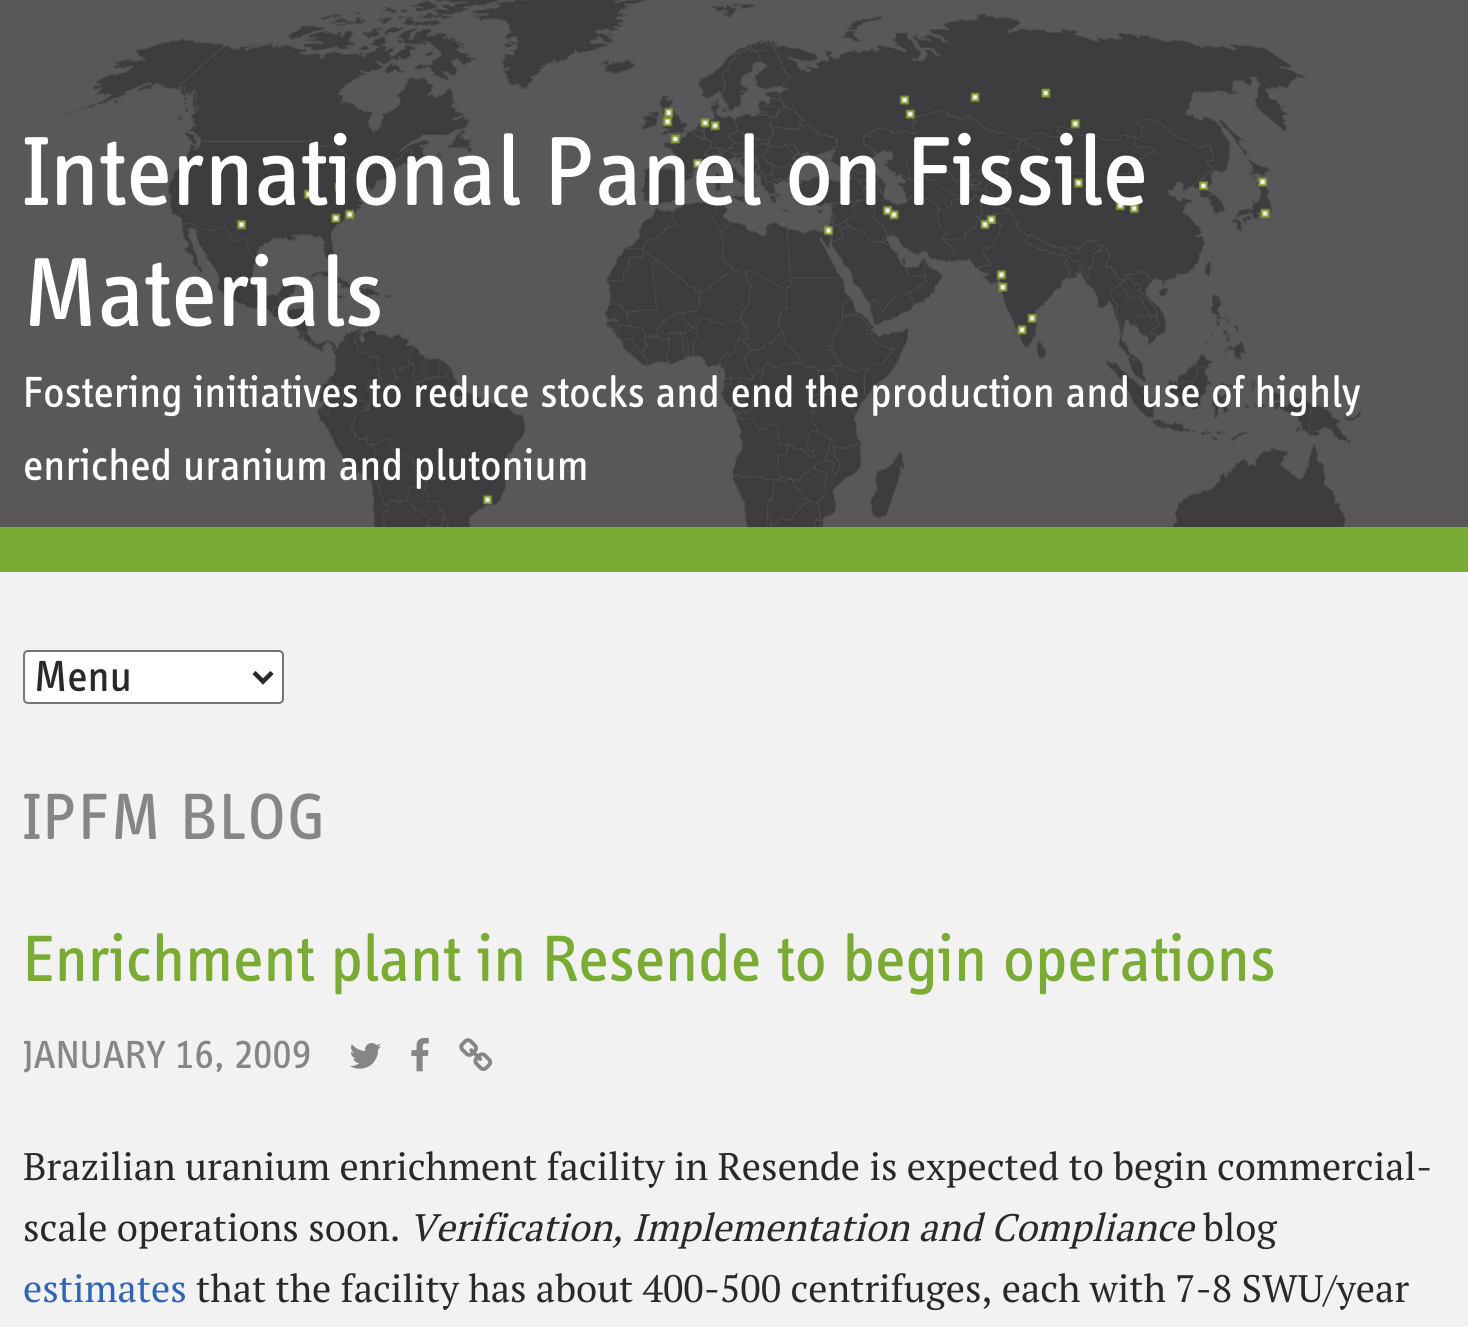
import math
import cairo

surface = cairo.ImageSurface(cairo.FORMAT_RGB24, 1468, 1327)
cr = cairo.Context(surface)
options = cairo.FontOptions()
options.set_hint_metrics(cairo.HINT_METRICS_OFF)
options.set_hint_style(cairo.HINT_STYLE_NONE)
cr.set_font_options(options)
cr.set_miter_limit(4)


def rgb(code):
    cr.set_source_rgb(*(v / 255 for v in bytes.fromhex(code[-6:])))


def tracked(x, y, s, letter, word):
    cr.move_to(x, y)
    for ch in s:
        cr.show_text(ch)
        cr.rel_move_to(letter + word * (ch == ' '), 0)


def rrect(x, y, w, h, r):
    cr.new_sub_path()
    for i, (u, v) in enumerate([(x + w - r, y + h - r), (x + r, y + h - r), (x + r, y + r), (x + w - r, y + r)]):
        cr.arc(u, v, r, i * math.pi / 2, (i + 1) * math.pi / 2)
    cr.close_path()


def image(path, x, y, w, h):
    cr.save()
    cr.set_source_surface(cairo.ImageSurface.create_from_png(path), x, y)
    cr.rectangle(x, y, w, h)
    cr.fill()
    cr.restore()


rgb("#f2f2f2")
cr.paint()
image("img/1.png", 0, 0, 1468, 527)
rgb("#7aab34")
cr.rectangle(0, 527, 1468, 45)
cr.fill()
rgb("#ffffff")
rrect(24, 651, 259, 52, 4)
cr.fill_preserve()
rgb("#767676")
cr.stroke()
cr.new_path()
cr.move_to(254, 672.5)
cr.line_to(263, 681.5)
cr.line_to(272, 672.5)
rgb("#292929")
cr.set_line_width(4.5)
cr.stroke()
image("img/2.png", 350, 1043, 31, 26)
image("img/3.png", 411, 1037, 18, 35)
image("img/4.png", 459, 1038, 34, 33)
cr.select_font_face("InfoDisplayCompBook")
cr.set_font_size(101.25)
rgb("#ffffff")
cr.move_to(23, 205)
cr.show_text("International Panel on Fissile")
cr.move_to(23, 326)
cr.show_text("Materials")
cr.set_font_size(45)
cr.move_to(23, 407)
cr.show_text("Fostering initiatives to reduce stocks and end the production and use of highly")
cr.move_to(23, 480)
cr.show_text("enriched uranium and plutonium")
rgb("#292929")
cr.move_to(34, 691)
cr.show_text("Menu")
cr.set_font_size(67.5)
rgb("#868686")
tracked(23, 839, "IPFM BLOG", 2, 0)
rgb("#7aab34")
cr.move_to(23, 981)
cr.show_text("Enrichment plant in Resende to begin operations")
cr.set_font_size(40.5)
rgb("#868686")
cr.move_to(23, 1068)
cr.show_text("JANUARY 16, 2009")
cr.select_font_face("PT Serif")
cr.set_font_size(38.25)
rgb("#292929")
cr.move_to(23, 1180)
cr.show_text("Brazilian uranium enrichment facility in Resende is expected to begin commercial-")
cr.move_to(23, 1241)
cr.show_text("scale operations soon.")
cr.select_font_face("PT Serif", cairo.FONT_SLANT_ITALIC)
cr.move_to(409, 1241)
cr.show_text("Verification, Implementation and Compliance")
cr.select_font_face("PT Serif")
cr.move_to(1203, 1241)
cr.show_text("blog")
rgb("#3264b4")
cr.move_to(23, 1302)
cr.show_text("estimates")
rgb("#292929")
cr.move_to(196, 1302)
cr.show_text("that the facility has about 400-500 centrifuges, each with 7-8 SWU/year")
surface.write_to_png("page.png")
